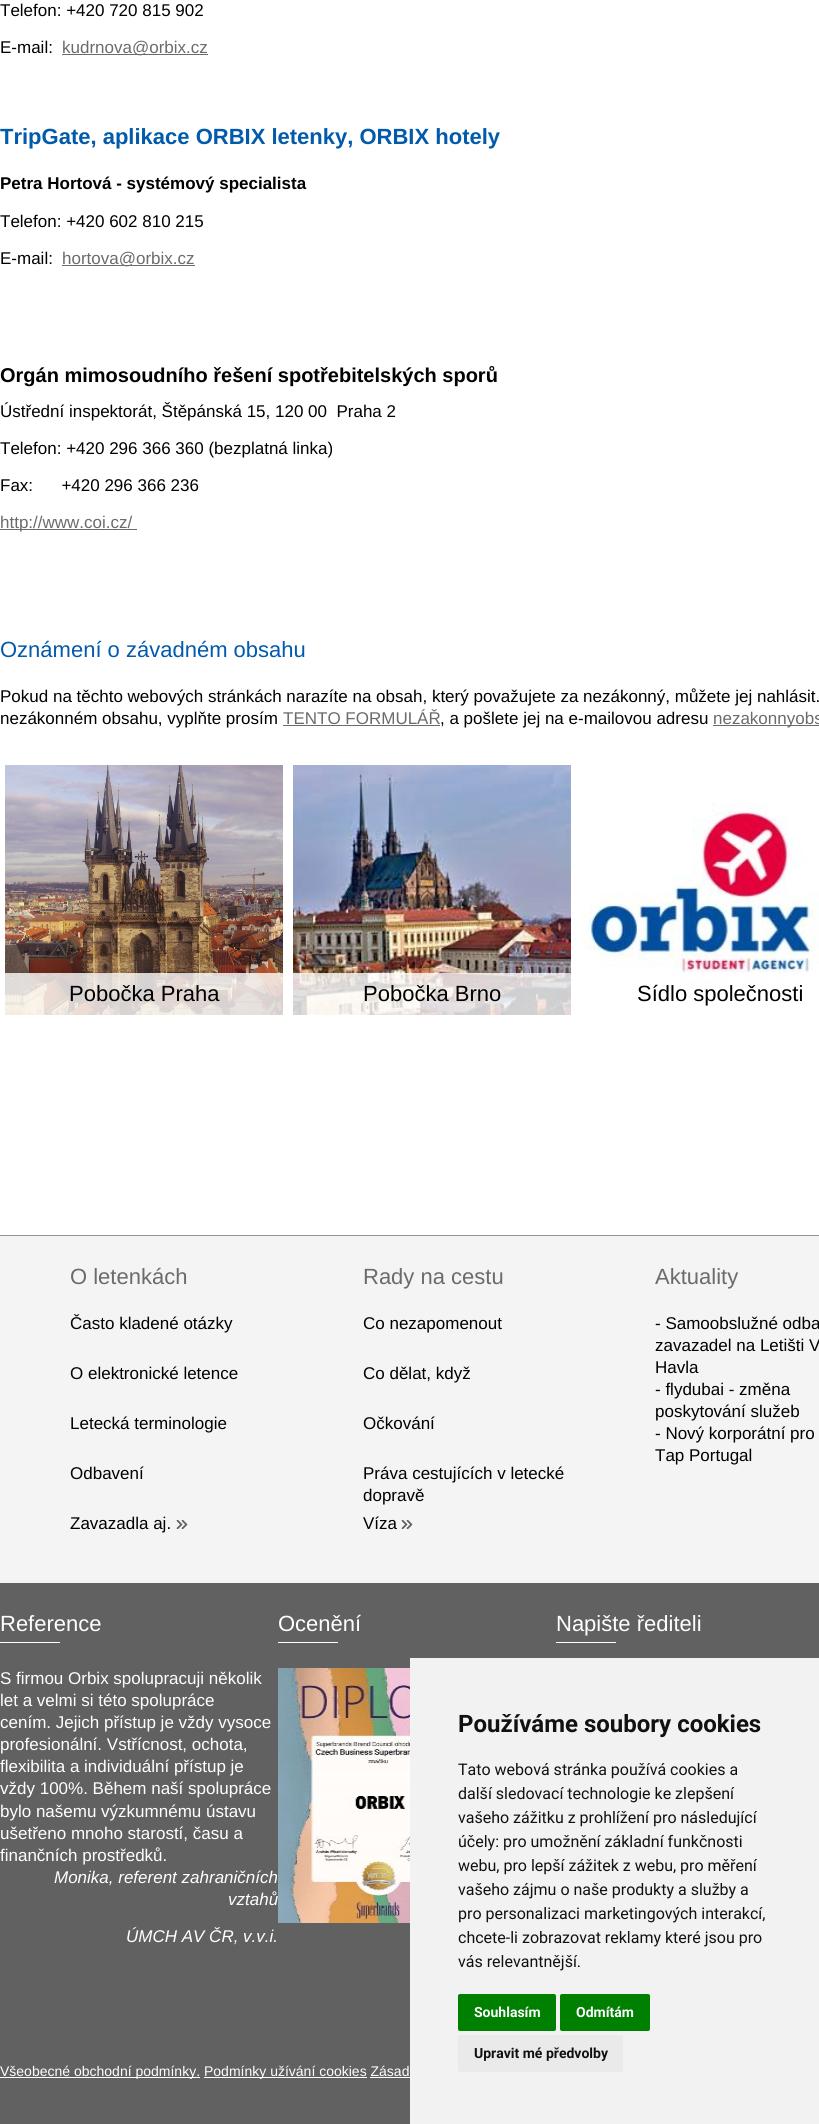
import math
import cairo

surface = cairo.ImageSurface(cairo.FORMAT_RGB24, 819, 2124)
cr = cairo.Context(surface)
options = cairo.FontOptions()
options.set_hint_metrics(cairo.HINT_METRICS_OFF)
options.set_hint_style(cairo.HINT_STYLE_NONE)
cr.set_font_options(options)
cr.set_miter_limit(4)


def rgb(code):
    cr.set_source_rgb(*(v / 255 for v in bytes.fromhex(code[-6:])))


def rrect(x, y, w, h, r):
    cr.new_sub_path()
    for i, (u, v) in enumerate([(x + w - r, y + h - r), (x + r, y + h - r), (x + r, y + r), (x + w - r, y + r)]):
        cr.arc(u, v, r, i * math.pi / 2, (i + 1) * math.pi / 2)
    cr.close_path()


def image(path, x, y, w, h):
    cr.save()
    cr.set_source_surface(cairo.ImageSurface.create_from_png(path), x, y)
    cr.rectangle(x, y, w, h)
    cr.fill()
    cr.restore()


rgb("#ffffff")
cr.paint()
for x, y, w, h, color in [
    (62, 54, 146, 1, "#6b6b6b"),
    (62, 265, 133, 1, "#6b6b6b"),
    (0, 529, 137, 1, "#6b6b6b"),
    (283, 725, 157, 1, "#6b6b6b"),
    (713, 725, 106, 1, "#6b6b6b"),
]:
    rgb(color)
    cr.rectangle(x, y, w, h)
    cr.fill()
image("img/1.png", 5, 765, 278, 250)
cr.set_source_rgba(1, 1, 1, 0.8)
cr.rectangle(5, 973, 278, 42)
cr.fill()
image("img/2.png", 293, 765, 278, 250)
cr.rectangle(293, 973, 278, 42)
cr.fill()
image("img/3.png", 581, 803, 238, 184)
cr.rectangle(685, 973, 104, 5)
cr.fill()
rgb("#f4f4f4")
cr.rectangle(0, 1236, 819, 347)
cr.fill()
rgb("#969696")
cr.rectangle(0, 1235, 819, 1)
cr.fill()
image("img/4.png", 176, 1520, 12, 9)
image("img/4.png", 401, 1520, 12, 9)
for x, y, w, h, color in [
    (0, 1583, 819, 541, "#616161"),
    (0, 1642, 60, 1, "#ffffff"),
    (278, 1642, 60, 1, "#ffffff"),
]:
    rgb(color)
    cr.rectangle(x, y, w, h)
    cr.fill()
image("img/5.png", 278, 1668, 132, 255)
for x, y, w, h, color in [
    (556, 1642, 60, 1, "#ffffff"),
    (0, 2077, 200, 1, "#ffffff"),
    (204, 2077, 163, 1, "#ffffff"),
    (370, 2077, 40, 1, "#ffffff"),
    (410, 1658, 409, 466, "#f2f2f2"),
]:
    rgb(color)
    cr.rectangle(x, y, w, h)
    cr.fill()
rgb("#008000")
rrect(458, 1994, 98, 37, 2)
cr.fill()
rrect(560, 1994, 90, 37, 2)
cr.fill()
rgb("#eaeaea")
rrect(458, 2035, 165, 37, 2)
cr.fill()
cr.select_font_face("Liberation Sans")
cr.set_font_size(17)
rgb("#000000")
cr.move_to(0, 16)
cr.show_text("Telefon: +420 720 815 902")
cr.move_to(0, 53)
cr.show_text("E-mail:")
rgb("#6b6b6b")
cr.move_to(62, 53)
cr.show_text("kudrnova@orbix.cz")
cr.select_font_face("Liberation Sans", cairo.FONT_SLANT_NORMAL, cairo.FONT_WEIGHT_BOLD)
cr.set_font_size(22)
rgb("#015aab")
cr.move_to(0, 144)
cr.show_text("TripGate, aplikace ORBIX letenky, ORBIX hotely")
cr.set_font_size(17)
rgb("#000000")
cr.move_to(0, 189)
cr.show_text("Petra Hortová - systémový specialista")
cr.select_font_face("Liberation Sans")
cr.move_to(0, 227)
cr.show_text("Telefon: +420 602 810 215")
cr.move_to(0, 264)
cr.show_text("E-mail:")
rgb("#6b6b6b")
cr.move_to(62, 264)
cr.show_text("hortova@orbix.cz")
cr.select_font_face("Liberation Sans", cairo.FONT_SLANT_NORMAL, cairo.FONT_WEIGHT_BOLD)
cr.set_font_size(20)
rgb("#000000")
cr.move_to(0, 382)
cr.show_text("Orgán mimosoudního řešení spotřebitelských sporů")
cr.select_font_face("Liberation Sans")
cr.set_font_size(17)
for x, y, s in [
    (0, 417, "Ústřední inspektorát, Štěpánská 15, 120 00  Praha 2"),
    (0, 454, "Telefon: +420 296 366 360 (bezplatná linka)"),
    (0, 491, "Fax:      +420 296 366 236"),
]:
    cr.move_to(x, y)
    cr.show_text(s)
rgb("#6b6b6b")
cr.move_to(0, 528)
cr.show_text("http://www.coi.cz/")
cr.set_font_size(22)
rgb("#015aab")
cr.move_to(0, 657)
cr.show_text("Oznámení o závadném obsahu")
cr.set_font_size(17)
rgb("#000000")
cr.move_to(0, 702)
cr.show_text("Pokud na těchto webových stránkách narazíte na obsah, který považujete za nezákonný, můžete jej nahlásit.")
cr.move_to(0, 724)
cr.show_text("nezákonném obsahu, vyplňte prosím")
rgb("#6b6b6b")
cr.move_to(283, 724)
cr.show_text("TENTO FORMULÁŘ")
rgb("#000000")
cr.move_to(440, 724)
cr.show_text(", a pošlete jej na e-mailovou adresu")
rgb("#6b6b6b")
cr.move_to(713, 724)
cr.show_text("nezakonnyobs")
cr.set_font_size(22)
rgb("#000000")
for x, y, s in [
    (69, 1001, "Pobočka Praha"),
    (363, 1001, "Pobočka Brno"),
    (637, 1001, "Sídlo společnosti"),
]:
    cr.move_to(x, y)
    cr.show_text(s)
rgb("#6b6b6b")
cr.move_to(70, 1284)
cr.show_text("O letenkách")
cr.set_font_size(17)
rgb("#000000")
for x, y, s in [
    (70, 1329, "Často kladené otázky"),
    (70, 1379, "O elektronické letence"),
    (70, 1429, "Letecká terminologie"),
    (70, 1479, "Odbavení"),
    (70, 1529, "Zavazadla aj."),
]:
    cr.move_to(x, y)
    cr.show_text(s)
cr.set_font_size(22)
rgb("#6b6b6b")
cr.move_to(363, 1284)
cr.show_text("Rady na cestu")
cr.set_font_size(17)
rgb("#000000")
for x, y, s in [
    (363, 1329, "Co nezapomenout"),
    (363, 1379, "Co dělat, když"),
    (363, 1429, "Očkování"),
    (363, 1479, "Práva cestujících v letecké"),
    (363, 1501, "dopravě"),
    (363, 1529, "Víza"),
]:
    cr.move_to(x, y)
    cr.show_text(s)
cr.set_font_size(22)
rgb("#6b6b6b")
cr.move_to(655, 1284)
cr.show_text("Aktuality")
cr.set_font_size(17)
rgb("#000000")
for x, y, s in [
    (655, 1329, "- Samoobslužné odba"),
    (655, 1351, "zavazadel na Letišti V"),
    (655, 1373, "Havla"),
    (655, 1395, "- flydubai - změna"),
    (655, 1417, "poskytování služeb"),
    (655, 1439, "- Nový korporátní pro"),
    (655, 1461, "Tap Portugal"),
]:
    cr.move_to(x, y)
    cr.show_text(s)
cr.set_font_size(22)
rgb("#ffffff")
cr.move_to(0, 1631)
cr.show_text("Reference")
cr.set_font_size(17)
for x, y, s in [
    (0, 1684, "S firmou Orbix spolupracuji několik"),
    (0, 1706, "let a velmi si této spolupráce"),
    (0, 1728, "cením. Jejich přístup je vždy vysoce"),
    (0, 1750, "profesionální. Vstřícnost, ochota,"),
    (0, 1772, "flexibilita a individuální přístup je"),
    (0, 1794, "vždy 100%. Během naší spolupráce"),
    (0, 1817, "bylo našemu výzkumnému ústavu"),
    (0, 1839, "ušetřeno mnoho starostí, času a"),
    (0, 1861, "finančních prostředků."),
]:
    cr.move_to(x, y)
    cr.show_text(s)
cr.select_font_face("Liberation Sans", cairo.FONT_SLANT_ITALIC)
for x, y, s in [
    (54, 1883, "Monika, referent zahraničních"),
    (228, 1905, "vztahů"),
    (126, 1942, "ÚMCH AV ČR, v.v.i."),
]:
    cr.move_to(x, y)
    cr.show_text(s)
cr.select_font_face("Liberation Sans")
cr.set_font_size(22)
cr.move_to(278, 1631)
cr.show_text("Ocenění")
cr.move_to(556, 1631)
cr.show_text("Napište řediteli")
cr.set_font_size(14)
cr.move_to(0, 2076)
cr.show_text("Všeobecné obchodní podmínky.")
cr.move_to(204, 2076)
cr.show_text("Podmínky užívání cookies Zásad")
cr.select_font_face("Roboto", cairo.FONT_SLANT_NORMAL, cairo.FONT_WEIGHT_BOLD)
cr.set_font_size(24)
rgb("#111111")
cr.move_to(458, 1732)
cr.show_text("Používáme soubory cookies")
cr.select_font_face("Roboto")
cr.set_font_size(16)
for x, y, s in [
    (458, 1775, "Tato webová stránka používá cookies a"),
    (458, 1799, "další sledovací technologie ke zlepšení"),
    (458, 1823, "vašeho zážitku z prohlížení pro následující"),
    (458, 1847, "účely: pro umožnění základní funkčnosti"),
    (458, 1871, "webu, pro lepší zážitek z webu, pro měření"),
    (458, 1895, "vašeho zájmu o naše produkty a služby a"),
    (458, 1919, "pro personalizaci marketingových interakcí,"),
    (458, 1943, "chcete-li zobrazovat reklamy které jsou pro"),
    (458, 1967, "vás relevantnější."),
]:
    cr.move_to(x, y)
    cr.show_text(s)
cr.select_font_face("Roboto", cairo.FONT_SLANT_NORMAL, cairo.FONT_WEIGHT_BOLD)
cr.set_font_size(14)
rgb("#ffffff")
cr.move_to(474, 2017)
cr.show_text("Souhlasím")
cr.move_to(576, 2017)
cr.show_text("Odmítám")
rgb("#111111")
cr.move_to(474, 2058)
cr.show_text("Upravit mé předvolby")
surface.write_to_png("page.png")
